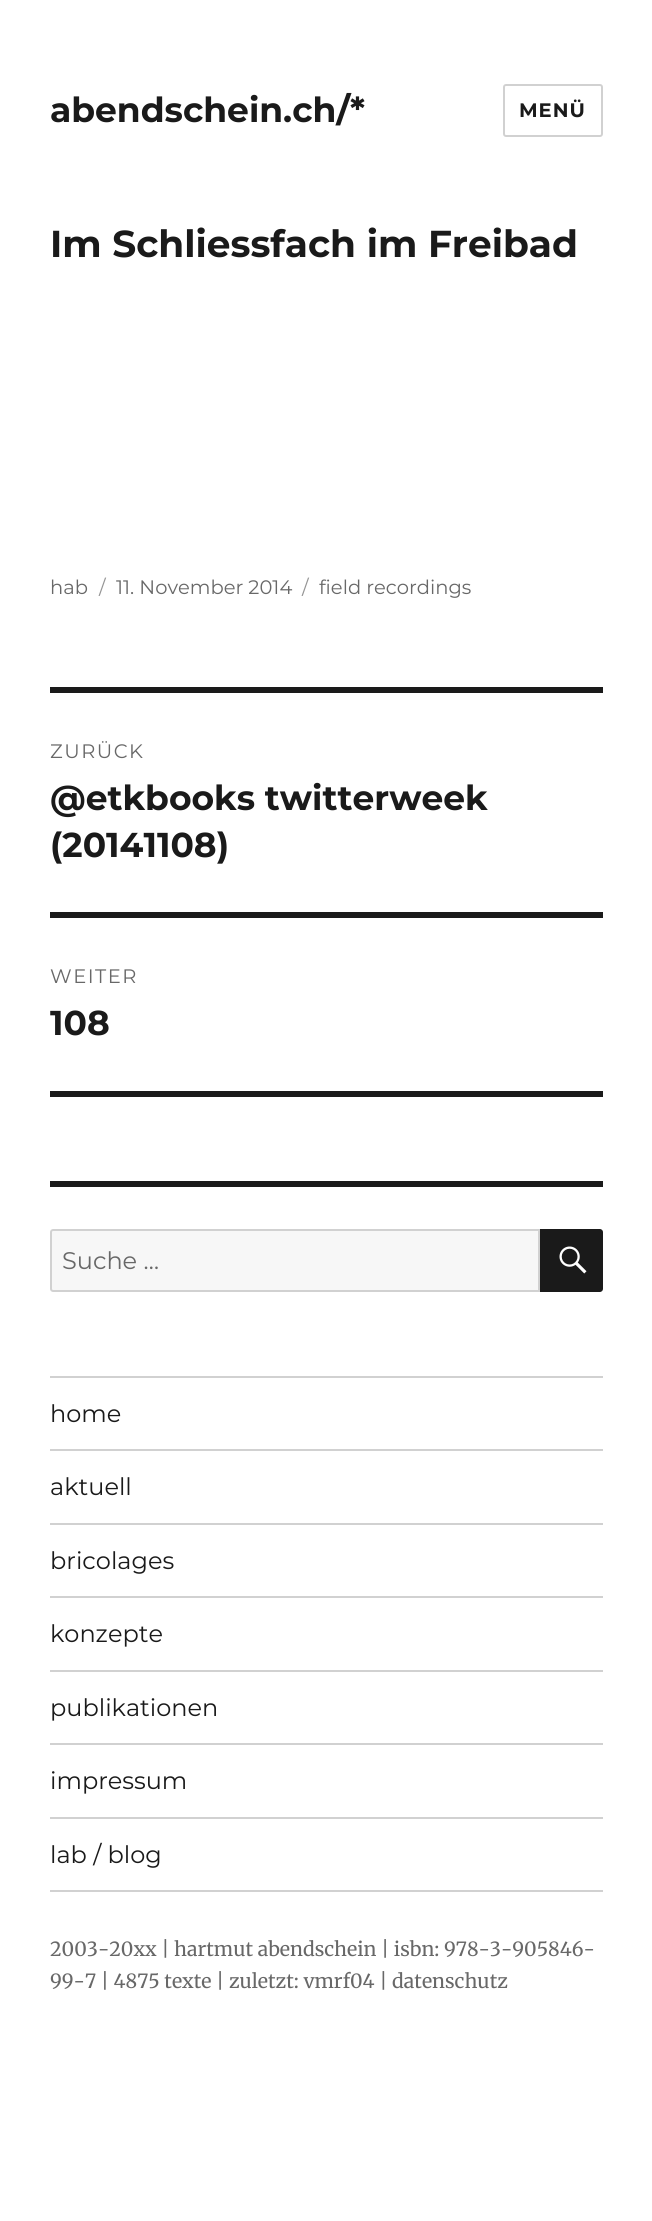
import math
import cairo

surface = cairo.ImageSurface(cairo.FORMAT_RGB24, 652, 2221)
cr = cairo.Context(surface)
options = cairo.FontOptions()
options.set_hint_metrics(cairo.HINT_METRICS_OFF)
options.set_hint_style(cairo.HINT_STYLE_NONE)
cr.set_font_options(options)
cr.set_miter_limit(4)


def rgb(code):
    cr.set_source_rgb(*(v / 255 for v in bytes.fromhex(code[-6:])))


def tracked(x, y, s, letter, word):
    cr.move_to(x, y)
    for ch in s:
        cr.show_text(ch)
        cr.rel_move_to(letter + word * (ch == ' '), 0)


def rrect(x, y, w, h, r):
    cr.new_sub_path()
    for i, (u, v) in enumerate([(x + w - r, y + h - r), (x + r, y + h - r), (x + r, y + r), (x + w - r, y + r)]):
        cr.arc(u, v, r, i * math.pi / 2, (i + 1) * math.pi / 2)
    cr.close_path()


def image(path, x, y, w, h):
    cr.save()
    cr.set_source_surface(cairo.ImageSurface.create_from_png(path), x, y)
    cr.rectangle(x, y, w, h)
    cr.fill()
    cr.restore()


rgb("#ffffff")
cr.paint()
image("img/1.png", 0, 2039, 652, 182)
rrect(504, 85, 98, 51, 2)
rgb("#d1d1d1")
cr.stroke()
for x, y, w, h, color in [
    (50, 687, 553, 6, "#1a1a1a"),
    (50, 1091, 553, 6, "#1a1a1a"),
    (50, 912, 553, 6, "#1a1a1a"),
    (50, 1181, 553, 6, "#1a1a1a"),
]:
    rgb(color)
    cr.rectangle(x, y, w, h)
    cr.fill()
rgb("#f7f7f7")
cr.new_path()
cr.move_to(53, 1230)
cr.line_to(539, 1230)
cr.line_to(539, 1291)
cr.line_to(53, 1291)
cr.curve_to(52, 1291, 51, 1290, 51, 1289)
cr.line_to(51, 1232)
cr.curve_to(51, 1231, 52, 1230, 53, 1230)
cr.close_path()
cr.fill_preserve()
rgb("#d1d1d1")
cr.stroke()
rgb("#1a1a1a")
cr.new_path()
cr.move_to(540, 1229)
cr.line_to(600, 1229)
cr.curve_to(601.5, 1229, 603, 1230.5, 603, 1232)
cr.line_to(603, 1289)
cr.curve_to(603, 1290.5, 601.5, 1292, 600, 1292)
cr.line_to(540, 1292)
cr.close_path()
cr.fill()
image("img/2.png", 559, 1246, 28, 28)
for x, y, w, h, color in [
    (50, 1890, 553, 2, "#d1d1d1"),
    (50, 1376, 553, 2, "#d1d1d1"),
    (50, 1449, 553, 2, "#d1d1d1"),
    (50, 1523, 553, 2, "#d1d1d1"),
    (50, 1596, 553, 2, "#d1d1d1"),
    (50, 1670, 553, 2, "#d1d1d1"),
    (50, 1743, 553, 2, "#d1d1d1"),
    (50, 1817, 553, 2, "#d1d1d1"),
]:
    rgb(color)
    cr.rectangle(x, y, w, h)
    cr.fill()
cr.select_font_face("Montserrat", cairo.FONT_SLANT_NORMAL, cairo.FONT_WEIGHT_BOLD)
cr.set_font_size(34.5)
rgb("#1a1a1a")
cr.move_to(50, 122)
cr.show_text("abendschein.ch/*")
cr.set_font_size(19.5)
tracked(519, 117, "MENÜ", 1, 0)
cr.set_font_size(37.5)
cr.move_to(50, 257)
cr.show_text("Im Schliessfach im Freibad")
cr.select_font_face("Montserrat")
cr.set_font_size(19.5)
rgb("#686868")
cr.move_to(50, 594)
cr.show_text("hab")
rgb("#959595")
cr.move_to(99, 594)
cr.show_text("/")
rgb("#686868")
cr.move_to(116, 594)
cr.show_text("11. November 2014")
rgb("#959595")
cr.move_to(302, 594)
cr.show_text("/")
rgb("#686868")
cr.move_to(319, 594)
cr.show_text("field recordings")
tracked(50, 758, "ZURÜCK", 1.5, 0)
cr.select_font_face("Montserrat", cairo.FONT_SLANT_NORMAL, cairo.FONT_WEIGHT_BOLD)
cr.set_font_size(34.5)
rgb("#1a1a1a")
cr.move_to(50, 810)
cr.show_text("@etkbooks twitterweek")
cr.move_to(50, 857)
cr.show_text("(20141108)")
cr.select_font_face("Montserrat")
cr.set_font_size(19.5)
rgb("#686868")
tracked(50, 983, "WEITER", 1.5, 0)
cr.select_font_face("Montserrat", cairo.FONT_SLANT_NORMAL, cairo.FONT_WEIGHT_BOLD)
cr.set_font_size(34.5)
rgb("#1a1a1a")
cr.move_to(50, 1035)
cr.show_text("108")
cr.select_font_face("Montserrat")
cr.set_font_size(24)
rgb("#686868")
cr.move_to(62, 1269)
cr.show_text("Suche …")
rgb("#1a1a1a")
for x, y, s in [
    (50, 1422, "home"),
    (50, 1495, "aktuell"),
    (50, 1569, "bricolages"),
    (50, 1642, "konzepte"),
    (50, 1716, "publikationen"),
    (50, 1789, "impressum"),
    (50, 1863, "lab / blog"),
]:
    cr.move_to(x, y)
    cr.show_text(s)
cr.select_font_face("Merriweather")
cr.set_font_size(19.5)
rgb("#686868")
cr.move_to(50, 1956)
cr.show_text("2003-20xx | hartmut abendschein | isbn: 978-3-905846-")
cr.move_to(50, 1988)
cr.show_text("99-7 | 4875 texte | zuletzt: vmrf04 | datenschutz")
surface.write_to_png("page.png")
